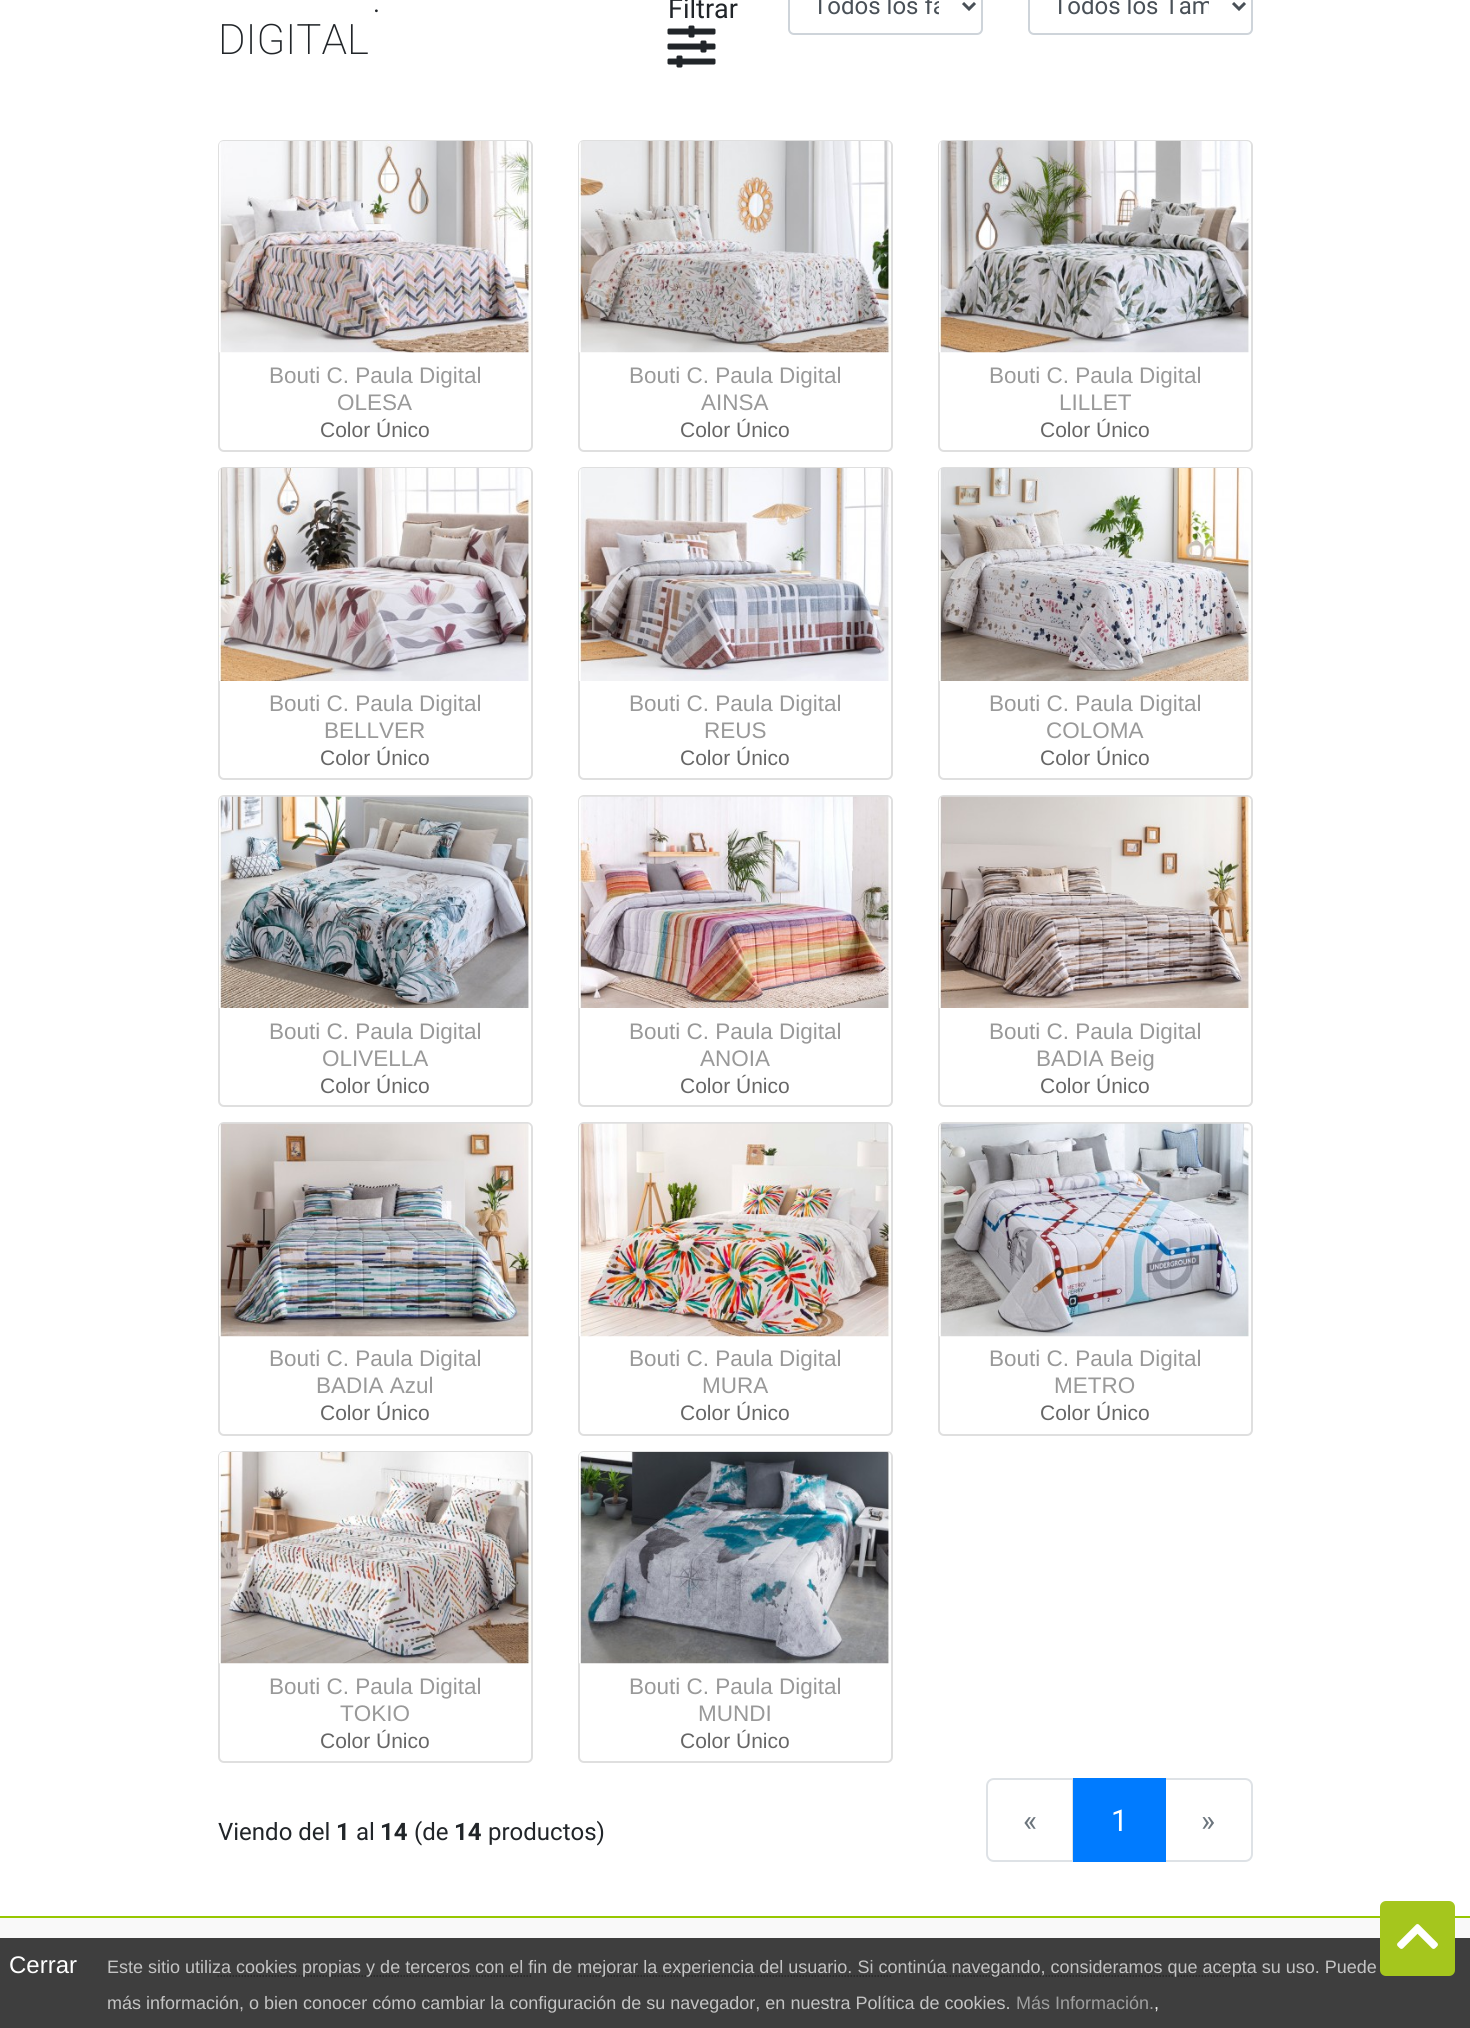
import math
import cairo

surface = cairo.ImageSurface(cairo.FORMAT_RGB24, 1470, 2028)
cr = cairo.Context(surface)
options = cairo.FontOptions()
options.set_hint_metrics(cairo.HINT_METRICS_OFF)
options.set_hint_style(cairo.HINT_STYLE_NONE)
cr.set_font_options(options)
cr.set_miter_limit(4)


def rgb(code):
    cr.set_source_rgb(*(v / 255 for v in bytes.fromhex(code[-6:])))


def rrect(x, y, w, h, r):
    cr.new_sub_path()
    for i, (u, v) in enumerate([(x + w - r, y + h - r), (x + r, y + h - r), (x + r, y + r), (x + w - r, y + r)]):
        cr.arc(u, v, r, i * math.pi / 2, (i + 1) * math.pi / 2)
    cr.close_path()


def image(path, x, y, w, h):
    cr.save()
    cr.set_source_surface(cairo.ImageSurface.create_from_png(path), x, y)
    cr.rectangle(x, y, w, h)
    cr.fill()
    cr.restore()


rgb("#ffffff")
cr.paint()
image("img/1.png", 667, 25, 49, 43)
rrect(789, -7, 193, 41, 5)
rgb("#ced4da")
cr.stroke()
cr.new_path()
cr.move_to(963, 3)
cr.line_to(969, 9)
cr.line_to(975, 3)
rgb("#495057")
cr.set_line_width(3)
cr.stroke()
rrect(1029, -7, 223, 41, 5)
rgb("#ced4da")
cr.set_line_width(2)
cr.stroke()
cr.new_path()
cr.move_to(1233, 3)
cr.line_to(1239, 9)
cr.line_to(1245, 3)
rgb("#495057")
cr.set_line_width(3)
cr.stroke()
rrect(219, 141, 313, 310, 5)
rgb("#dfdfdf")
cr.set_line_width(2)
cr.stroke()
image("img/2.png", 219, 141, 312, 212)
rrect(579, 141, 313, 310, 5)
cr.stroke()
image("img/3.png", 579, 141, 312, 212)
rrect(939, 141, 313, 310, 5)
cr.stroke()
image("img/4.png", 939, 141, 312, 212)
rrect(219, 468, 313, 311, 5)
cr.stroke()
image("img/5.png", 219, 468, 312, 213)
rrect(579, 468, 313, 311, 5)
cr.stroke()
image("img/6.png", 579, 468, 312, 213)
rrect(939, 468, 313, 311, 5)
cr.stroke()
image("img/7.png", 939, 468, 312, 213)
rrect(219, 796, 313, 310, 5)
cr.stroke()
image("img/8.png", 219, 796, 312, 212)
rrect(579, 796, 313, 310, 5)
cr.stroke()
image("img/9.png", 579, 796, 312, 212)
rrect(939, 796, 313, 310, 5)
cr.stroke()
image("img/10.png", 939, 796, 312, 212)
rrect(219, 1123, 313, 312, 5)
cr.stroke()
image("img/11.png", 219, 1123, 312, 214)
rrect(579, 1123, 313, 312, 5)
cr.stroke()
image("img/12.png", 579, 1123, 312, 214)
rrect(939, 1123, 313, 312, 5)
cr.stroke()
image("img/13.png", 939, 1123, 312, 214)
rrect(219, 1452, 313, 310, 5)
cr.stroke()
image("img/14.png", 219, 1452, 312, 212)
rrect(579, 1452, 313, 310, 5)
cr.stroke()
image("img/15.png", 579, 1452, 312, 212)
cr.new_path()
cr.move_to(994, 1779)
cr.line_to(1073, 1779)
cr.line_to(1073, 1861)
cr.line_to(994, 1861)
cr.curve_to(990, 1861, 987, 1858, 987, 1854)
cr.line_to(987, 1786)
cr.curve_to(987, 1782, 990, 1779, 994, 1779)
cr.close_path()
rgb("#dee2e6")
cr.stroke()
cr.new_path()
cr.move_to(1165, 1779)
cr.line_to(1245, 1779)
cr.curve_to(1249, 1779, 1252, 1782, 1252, 1786)
cr.line_to(1252, 1854)
cr.curve_to(1252, 1858, 1249, 1861, 1245, 1861)
cr.line_to(1165, 1861)
cr.close_path()
cr.stroke()
for x, y, w, h, color in [
    (1073, 1778, 93, 84, "#007bff"),
    (0, 1918, 1470, 110, "#f9f9f9"),
    (0, 1916, 1470, 2, "#97c700"),
]:
    rgb(color)
    cr.rectangle(x, y, w, h)
    cr.fill()
cr.new_path()
cr.move_to(217.5, 1976)
cr.line_to(532.5, 1976)
rgb("#999999")
cr.set_line_width(1.5)
cr.set_dash([1.5, 1.5])
cr.stroke()
cr.new_path()
cr.move_to(577.5, 1976)
cr.line_to(892.5, 1976)
cr.stroke()
cr.new_path()
cr.move_to(937.5, 1976)
cr.line_to(1252.5, 1976)
cr.stroke()
cr.set_source_rgba(0, 0, 0, 0.75)
cr.rectangle(0, 1938, 1470, 90)
cr.fill()
rgb("#a5c61d")
rrect(1380, 1901, 75, 75, 6)
cr.fill()
image("img/16.png", 1397, 1924, 41, 25)
cr.select_font_face("Roboto")
cr.set_font_size(27)
rgb("#212529")
cr.move_to(668, 18)
cr.show_text("Filtrar")
cr.save()
cr.rectangle(813, 0, 126, 21)
cr.clip()
cr.set_font_size(24)
rgb("#495057")
cr.move_to(813, 14)
cr.show_text("Todos los fa")
cr.restore()
cr.save()
cr.rectangle(1053, 0, 156, 21)
cr.clip()
cr.set_font_size(24)
rgb("#495057")
cr.move_to(1053, 14)
cr.show_text("Todos los Tam")
cr.restore()
cr.select_font_face("Roboto ExtraLight")
cr.set_font_size(42)
cr.move_to(372, 12)
cr.show_text(".")
cr.move_to(218, 54)
cr.show_text("DIGITAL")
cr.select_font_face("Liberation Sans")
cr.set_font_size(22.5)
rgb("#999999")
cr.move_to(269, 383)
cr.show_text("Bouti C. Paula Digital")
cr.move_to(337, 410)
cr.show_text("OLESA")
cr.set_font_size(21)
rgb("#666666")
cr.move_to(320, 437)
cr.show_text("Color Único")
cr.set_font_size(22.5)
rgb("#999999")
cr.move_to(629, 383)
cr.show_text("Bouti C. Paula Digital")
cr.move_to(701, 410)
cr.show_text("AINSA")
cr.set_font_size(21)
rgb("#666666")
cr.move_to(680, 437)
cr.show_text("Color Único")
cr.set_font_size(22.5)
rgb("#999999")
cr.move_to(989, 383)
cr.show_text("Bouti C. Paula Digital")
cr.move_to(1059, 410)
cr.show_text("LILLET")
cr.set_font_size(21)
rgb("#666666")
cr.move_to(1040, 437)
cr.show_text("Color Único")
cr.set_font_size(22.5)
rgb("#999999")
cr.move_to(269, 711)
cr.show_text("Bouti C. Paula Digital")
cr.move_to(324, 738)
cr.show_text("BELLVER")
cr.set_font_size(21)
rgb("#666666")
cr.move_to(320, 765)
cr.show_text("Color Único")
cr.set_font_size(22.5)
rgb("#999999")
cr.move_to(629, 711)
cr.show_text("Bouti C. Paula Digital")
cr.move_to(704, 738)
cr.show_text("REUS")
cr.set_font_size(21)
rgb("#666666")
cr.move_to(680, 765)
cr.show_text("Color Único")
cr.set_font_size(22.5)
rgb("#999999")
cr.move_to(989, 711)
cr.show_text("Bouti C. Paula Digital")
cr.move_to(1046, 738)
cr.show_text("COLOMA")
cr.set_font_size(21)
rgb("#666666")
cr.move_to(1040, 765)
cr.show_text("Color Único")
cr.set_font_size(22.5)
rgb("#999999")
cr.move_to(269, 1039)
cr.show_text("Bouti C. Paula Digital")
cr.move_to(322, 1066)
cr.show_text("OLIVELLA")
cr.set_font_size(21)
rgb("#666666")
cr.move_to(320, 1093)
cr.show_text("Color Único")
cr.set_font_size(22.5)
rgb("#999999")
cr.move_to(629, 1039)
cr.show_text("Bouti C. Paula Digital")
cr.move_to(700, 1066)
cr.show_text("ANOIA")
cr.set_font_size(21)
rgb("#666666")
cr.move_to(680, 1093)
cr.show_text("Color Único")
cr.set_font_size(22.5)
rgb("#999999")
cr.move_to(989, 1039)
cr.show_text("Bouti C. Paula Digital")
cr.move_to(1036, 1066)
cr.show_text("BADIA Beig")
cr.set_font_size(21)
rgb("#666666")
cr.move_to(1040, 1093)
cr.show_text("Color Único")
cr.set_font_size(22.5)
rgb("#999999")
cr.move_to(269, 1366)
cr.show_text("Bouti C. Paula Digital")
cr.move_to(316, 1393)
cr.show_text("BADIA Azul")
cr.set_font_size(21)
rgb("#666666")
cr.move_to(320, 1420)
cr.show_text("Color Único")
cr.set_font_size(22.5)
rgb("#999999")
cr.move_to(629, 1366)
cr.show_text("Bouti C. Paula Digital")
cr.move_to(702, 1393)
cr.show_text("MURA")
cr.set_font_size(21)
rgb("#666666")
cr.move_to(680, 1420)
cr.show_text("Color Único")
cr.set_font_size(22.5)
rgb("#999999")
cr.move_to(989, 1366)
cr.show_text("Bouti C. Paula Digital")
cr.move_to(1054, 1393)
cr.show_text("METRO")
cr.set_font_size(21)
rgb("#666666")
cr.move_to(1040, 1420)
cr.show_text("Color Único")
cr.set_font_size(22.5)
rgb("#999999")
cr.move_to(269, 1694)
cr.show_text("Bouti C. Paula Digital")
cr.move_to(340, 1721)
cr.show_text("TOKIO")
cr.set_font_size(21)
rgb("#666666")
cr.move_to(320, 1748)
cr.show_text("Color Único")
cr.set_font_size(22.5)
rgb("#999999")
cr.move_to(629, 1694)
cr.show_text("Bouti C. Paula Digital")
cr.move_to(698, 1721)
cr.show_text("MUNDI")
cr.set_font_size(21)
rgb("#666666")
cr.move_to(680, 1748)
cr.show_text("Color Único")
cr.select_font_face("Roboto")
cr.set_font_size(24)
rgb("#212529")
cr.move_to(218, 1840)
cr.show_text("Viendo del")
cr.select_font_face("Roboto", cairo.FONT_SLANT_NORMAL, cairo.FONT_WEIGHT_BOLD)
cr.move_to(336, 1840)
cr.show_text("1")
cr.select_font_face("Roboto")
cr.move_to(356, 1840)
cr.show_text("al")
cr.select_font_face("Roboto", cairo.FONT_SLANT_NORMAL, cairo.FONT_WEIGHT_BOLD)
cr.move_to(380, 1840)
cr.show_text("14")
cr.select_font_face("Roboto")
cr.move_to(414, 1840)
cr.show_text("(de")
cr.select_font_face("Roboto", cairo.FONT_SLANT_NORMAL, cairo.FONT_WEIGHT_BOLD)
cr.move_to(454, 1840)
cr.show_text("14")
cr.select_font_face("Roboto")
cr.move_to(488, 1840)
cr.show_text("productos)")
cr.set_font_size(30)
rgb("#6c757d")
cr.move_to(1023, 1831)
cr.show_text("«")
rgb("#ffffff")
cr.move_to(1111, 1831)
cr.show_text("1")
rgb("#6c757d")
cr.move_to(1201, 1831)
cr.show_text("»")
cr.select_font_face("Liberation Sans")
cr.set_font_size(24)
rgb("#ffffff")
cr.move_to(9, 1973)
cr.show_text("Cerrar")
cr.set_font_size(18)
rgb("#c4c4c4")
cr.move_to(107, 1973)
cr.show_text("Este sitio utiliza cookies propias y de terceros con el fin de mejorar la experiencia del usuario. Si continúa navegando, consideramos que acepta su uso. Puede")
cr.move_to(107, 2009)
cr.show_text("más información, o bien conocer cómo cambiar la configuración de su navegador, en nuestra Política de cookies.")
rgb("#9f9f9f")
cr.move_to(1016, 2009)
cr.show_text("Más Información.")
rgb("#f3f3f3")
cr.move_to(1154, 2009)
cr.show_text(",")
surface.write_to_png("page.png")
